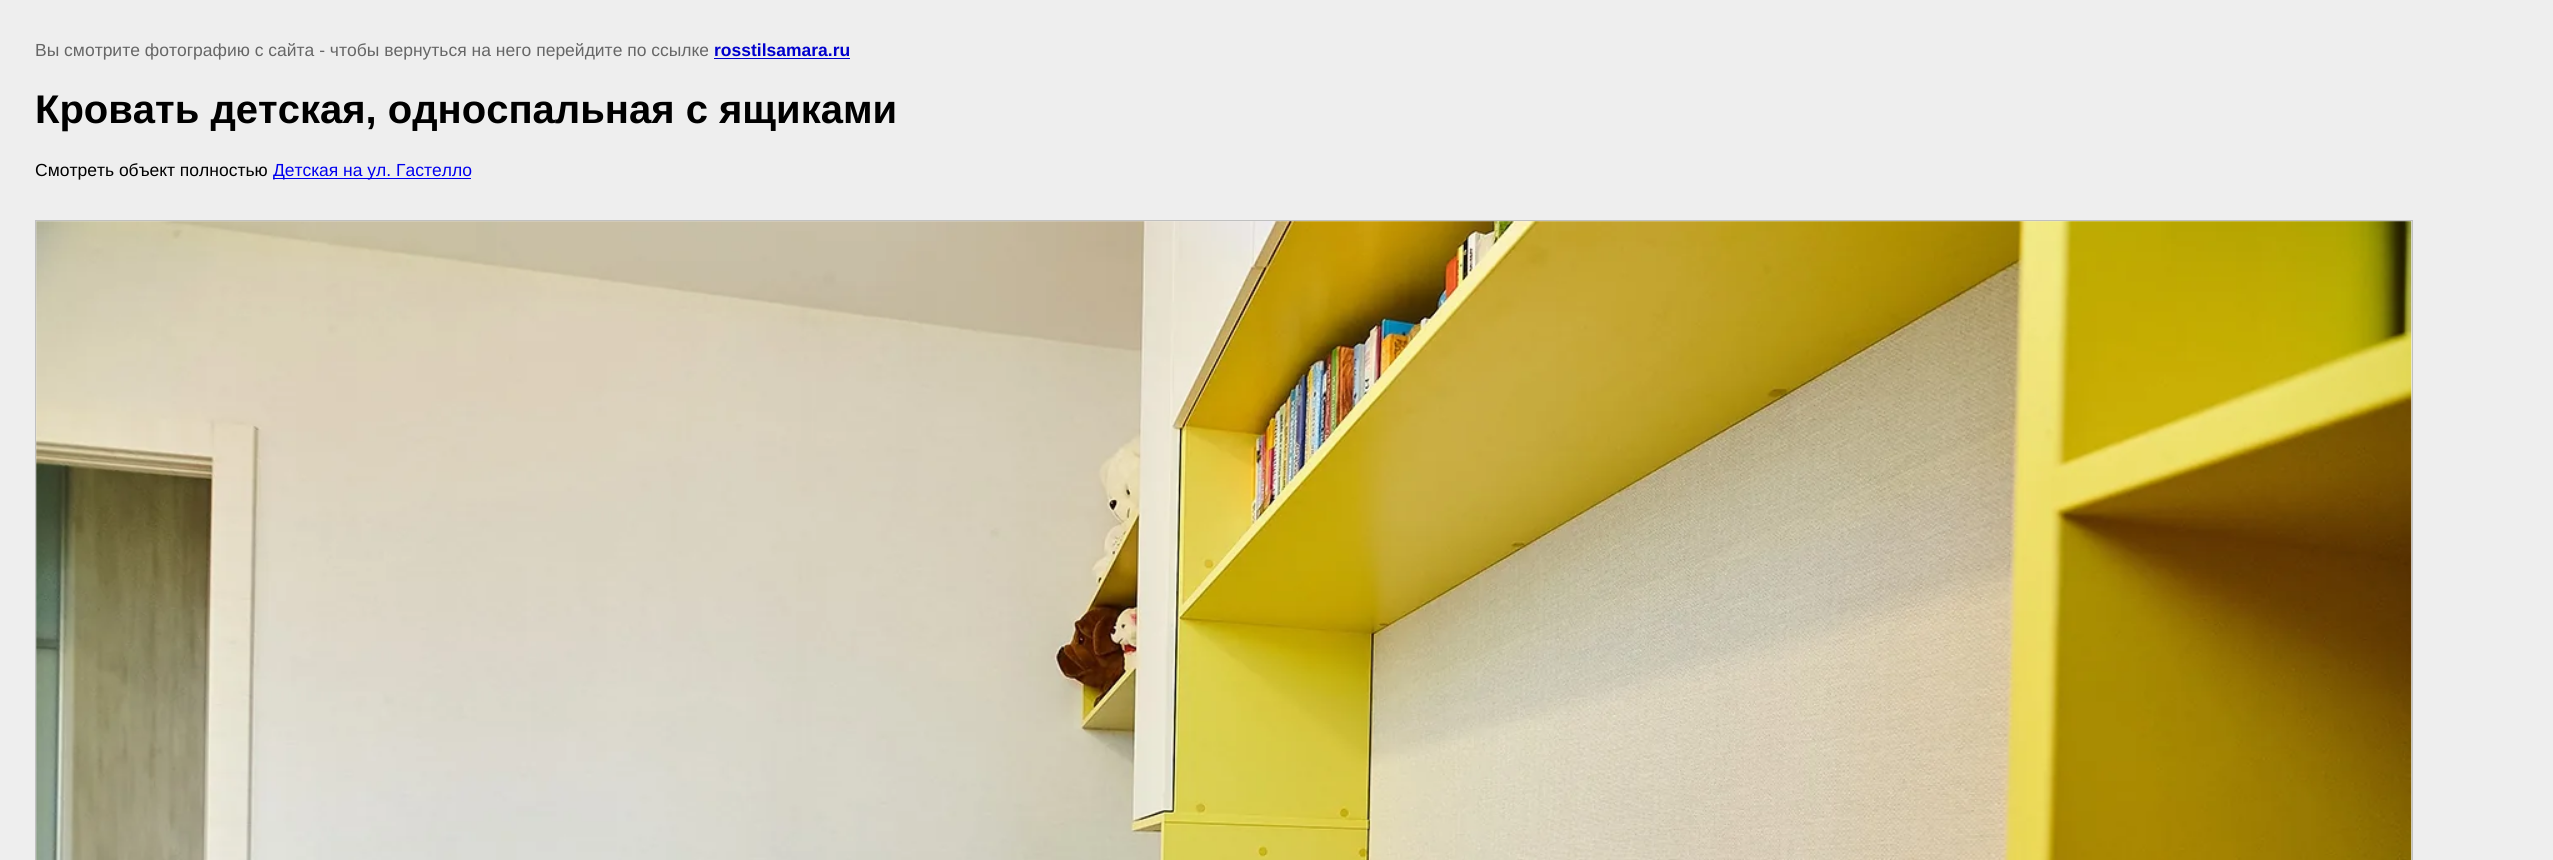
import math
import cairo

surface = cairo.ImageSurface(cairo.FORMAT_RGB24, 2553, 860)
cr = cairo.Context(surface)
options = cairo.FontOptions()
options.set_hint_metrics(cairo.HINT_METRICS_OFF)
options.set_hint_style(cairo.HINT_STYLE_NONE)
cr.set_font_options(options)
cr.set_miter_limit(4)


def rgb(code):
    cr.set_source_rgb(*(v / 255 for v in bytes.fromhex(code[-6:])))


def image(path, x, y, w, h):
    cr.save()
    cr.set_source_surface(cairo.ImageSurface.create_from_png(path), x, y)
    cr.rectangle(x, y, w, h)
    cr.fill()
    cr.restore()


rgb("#eeeeee")
cr.paint()
rgb("#0000cc")
cr.rectangle(714, 58, 136, 1)
cr.fill()
rgb("#0000ee")
cr.rectangle(273, 178, 198, 1)
cr.fill()
cr.rectangle(35.5, 220.5, 2377, 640)
rgb("#c0c0c0")
cr.set_line_width(1)
cr.stroke()
image("img/1.png", 36, 221, 2376, 639)
cr.select_font_face("Liberation Sans")
cr.set_font_size(17.5)
rgb("#666666")
cr.move_to(35, 56)
cr.show_text("Вы смотрите фотографию с сайта - чтобы вернуться на него перейдите по ссылке")
cr.select_font_face("Liberation Sans", cairo.FONT_SLANT_NORMAL, cairo.FONT_WEIGHT_BOLD)
rgb("#0000cc")
cr.move_to(714, 56)
cr.show_text("rosstilsamara.ru")
cr.set_font_size(40)
rgb("#000000")
cr.move_to(35, 123)
cr.show_text("Кровать детская, односпальная с ящиками")
cr.select_font_face("Liberation Sans")
cr.set_font_size(17.5)
cr.move_to(35, 176)
cr.show_text("Смотреть объект полностью")
rgb("#0000ee")
cr.move_to(273, 176)
cr.show_text("Детская на ул. Гастелло")
surface.write_to_png("page.png")
